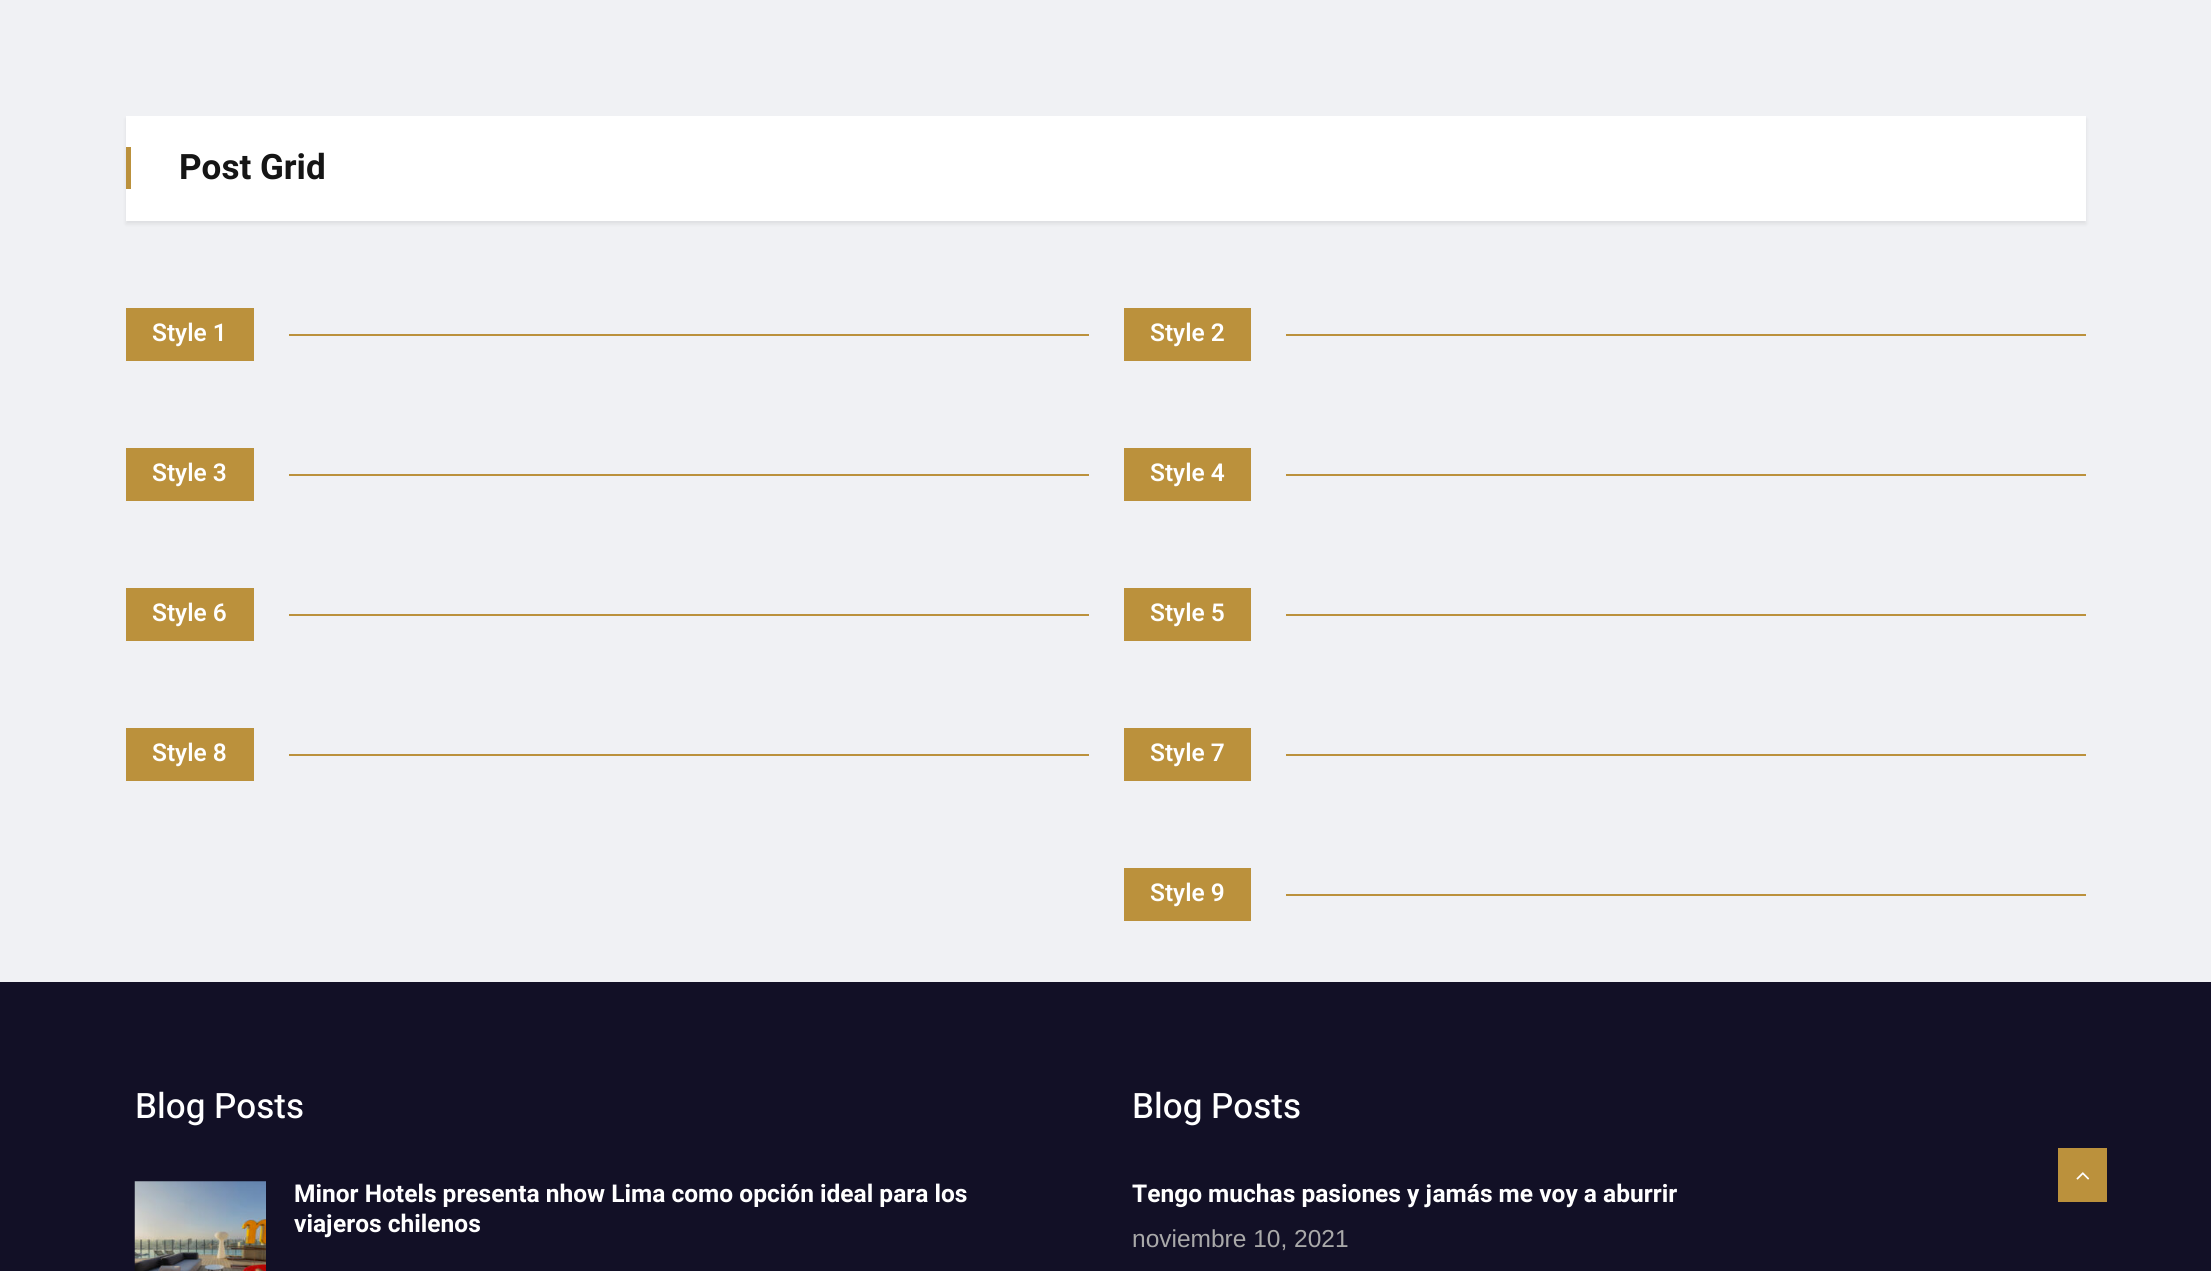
import math
import cairo

surface = cairo.ImageSurface(cairo.FORMAT_RGB24, 2211, 1271)
cr = cairo.Context(surface)
options = cairo.FontOptions()
options.set_hint_metrics(cairo.HINT_METRICS_OFF)
options.set_hint_style(cairo.HINT_STYLE_NONE)
cr.set_font_options(options)
cr.set_miter_limit(4)


def rgb(code):
    cr.set_source_rgb(*(v / 255 for v in bytes.fromhex(code[-6:])))


def rrect(x, y, w, h, r):
    cr.new_sub_path()
    for i, (u, v) in enumerate([(x + w - r, y + h - r), (x + r, y + h - r), (x + r, y + r), (x + w - r, y + r)]):
        cr.arc(u, v, r, i * math.pi / 2, (i + 1) * math.pi / 2)
    cr.close_path()


def soft_shadow(x, y, w, h, r, blur, alpha):
    cr.push_group_with_content(cairo.CONTENT_ALPHA)
    cr.set_operator(cairo.OPERATOR_SOURCE)
    for i in range(15, -16, -2):
        e = blur * i / 6
        if min(w, h) + 2 * e > 0:
            cr.set_source_rgba(0, 0, 0, alpha * math.erfc((i - 1) / 8.5) / 2)
            rrect(x - e, y - e, w + 2 * e, h + 2 * e, max(0, min(r + e + blur * .6, min(w, h) / 2 + e)))
            cr.fill()
    cr.mask(cr.pop_group())


def image(path, x, y, w, h):
    cr.save()
    cr.set_source_surface(cairo.ImageSurface.create_from_png(path), x, y)
    cr.rectangle(x, y, w, h)
    cr.fill()
    cr.restore()


rgb("#f0f1f4")
cr.paint()
rgb("#000000")
soft_shadow(126, 119, 1960, 105, 0, 2, 0.08)
for x, y, w, h, color in [
    (126, 116, 1960, 105, "#ffffff"),
    (126, 147, 5, 42, "#bb913c"),
    (126, 308, 128, 53, "#bb913c"),
    (289, 334, 800, 2, "#bb913c"),
    (126, 448, 128, 53, "#bb913c"),
    (289, 474, 800, 2, "#bb913c"),
    (126, 588, 128, 53, "#bb913c"),
    (289, 614, 800, 2, "#bb913c"),
    (126, 728, 128, 53, "#bb913c"),
    (289, 754, 800, 2, "#bb913c"),
    (1124, 308, 127, 53, "#bb913c"),
    (1286, 334, 800, 2, "#bb913c"),
    (1124, 448, 127, 53, "#bb913c"),
    (1286, 474, 800, 2, "#bb913c"),
    (1124, 588, 127, 53, "#bb913c"),
    (1286, 614, 800, 2, "#bb913c"),
    (1124, 728, 127, 53, "#bb913c"),
    (1286, 754, 800, 2, "#bb913c"),
    (1124, 868, 127, 53, "#bb913c"),
    (1286, 894, 800, 2, "#bb913c"),
    (0, 982, 2211, 289, "#121026"),
]:
    rgb(color)
    cr.rectangle(x, y, w, h)
    cr.fill()
image("img/1.png", 134, 1181, 132, 90)
rgb("#bb913c")
cr.rectangle(2058, 1148, 49, 54)
cr.fill()
image("img/2.png", 2076, 1172, 14, 8)
cr.select_font_face("Heebo", cairo.FONT_SLANT_NORMAL, cairo.FONT_WEIGHT_BOLD)
cr.set_font_size(35)
rgb("#151515")
cr.move_to(179, 179)
cr.show_text("Post Grid")
cr.select_font_face("Heebo SemiBold")
cr.set_font_size(24.5)
rgb("#ffffff")
for x, y, s in [
    (152, 341, "Style 1"),
    (152, 481, "Style 3"),
    (152, 621, "Style 6"),
    (152, 761, "Style 8"),
    (1150, 341, "Style 2"),
    (1150, 481, "Style 4"),
    (1150, 621, "Style 5"),
    (1150, 761, "Style 7"),
    (1150, 901, "Style 9"),
]:
    cr.move_to(x, y)
    cr.show_text(s)
cr.select_font_face("Heebo Medium")
cr.set_font_size(35)
cr.move_to(135, 1118)
cr.show_text("Blog Posts")
cr.select_font_face("Heebo", cairo.FONT_SLANT_NORMAL, cairo.FONT_WEIGHT_BOLD)
cr.set_font_size(24.5)
cr.move_to(294, 1202)
cr.show_text("Minor Hotels presenta nhow Lima como opción ideal para los")
cr.move_to(294, 1232)
cr.show_text("viajeros chilenos")
cr.select_font_face("Heebo Medium")
cr.set_font_size(35)
cr.move_to(1132, 1118)
cr.show_text("Blog Posts")
cr.select_font_face("Heebo", cairo.FONT_SLANT_NORMAL, cairo.FONT_WEIGHT_BOLD)
cr.set_font_size(24.5)
cr.move_to(1132, 1202)
cr.show_text("Tengo muchas pasiones y jamás me voy a aburrir")
cr.select_font_face("Arimo")
rgb("#a9a9a9")
cr.move_to(1132, 1247)
cr.show_text("noviembre 10, 2021")
surface.write_to_png("page.png")
